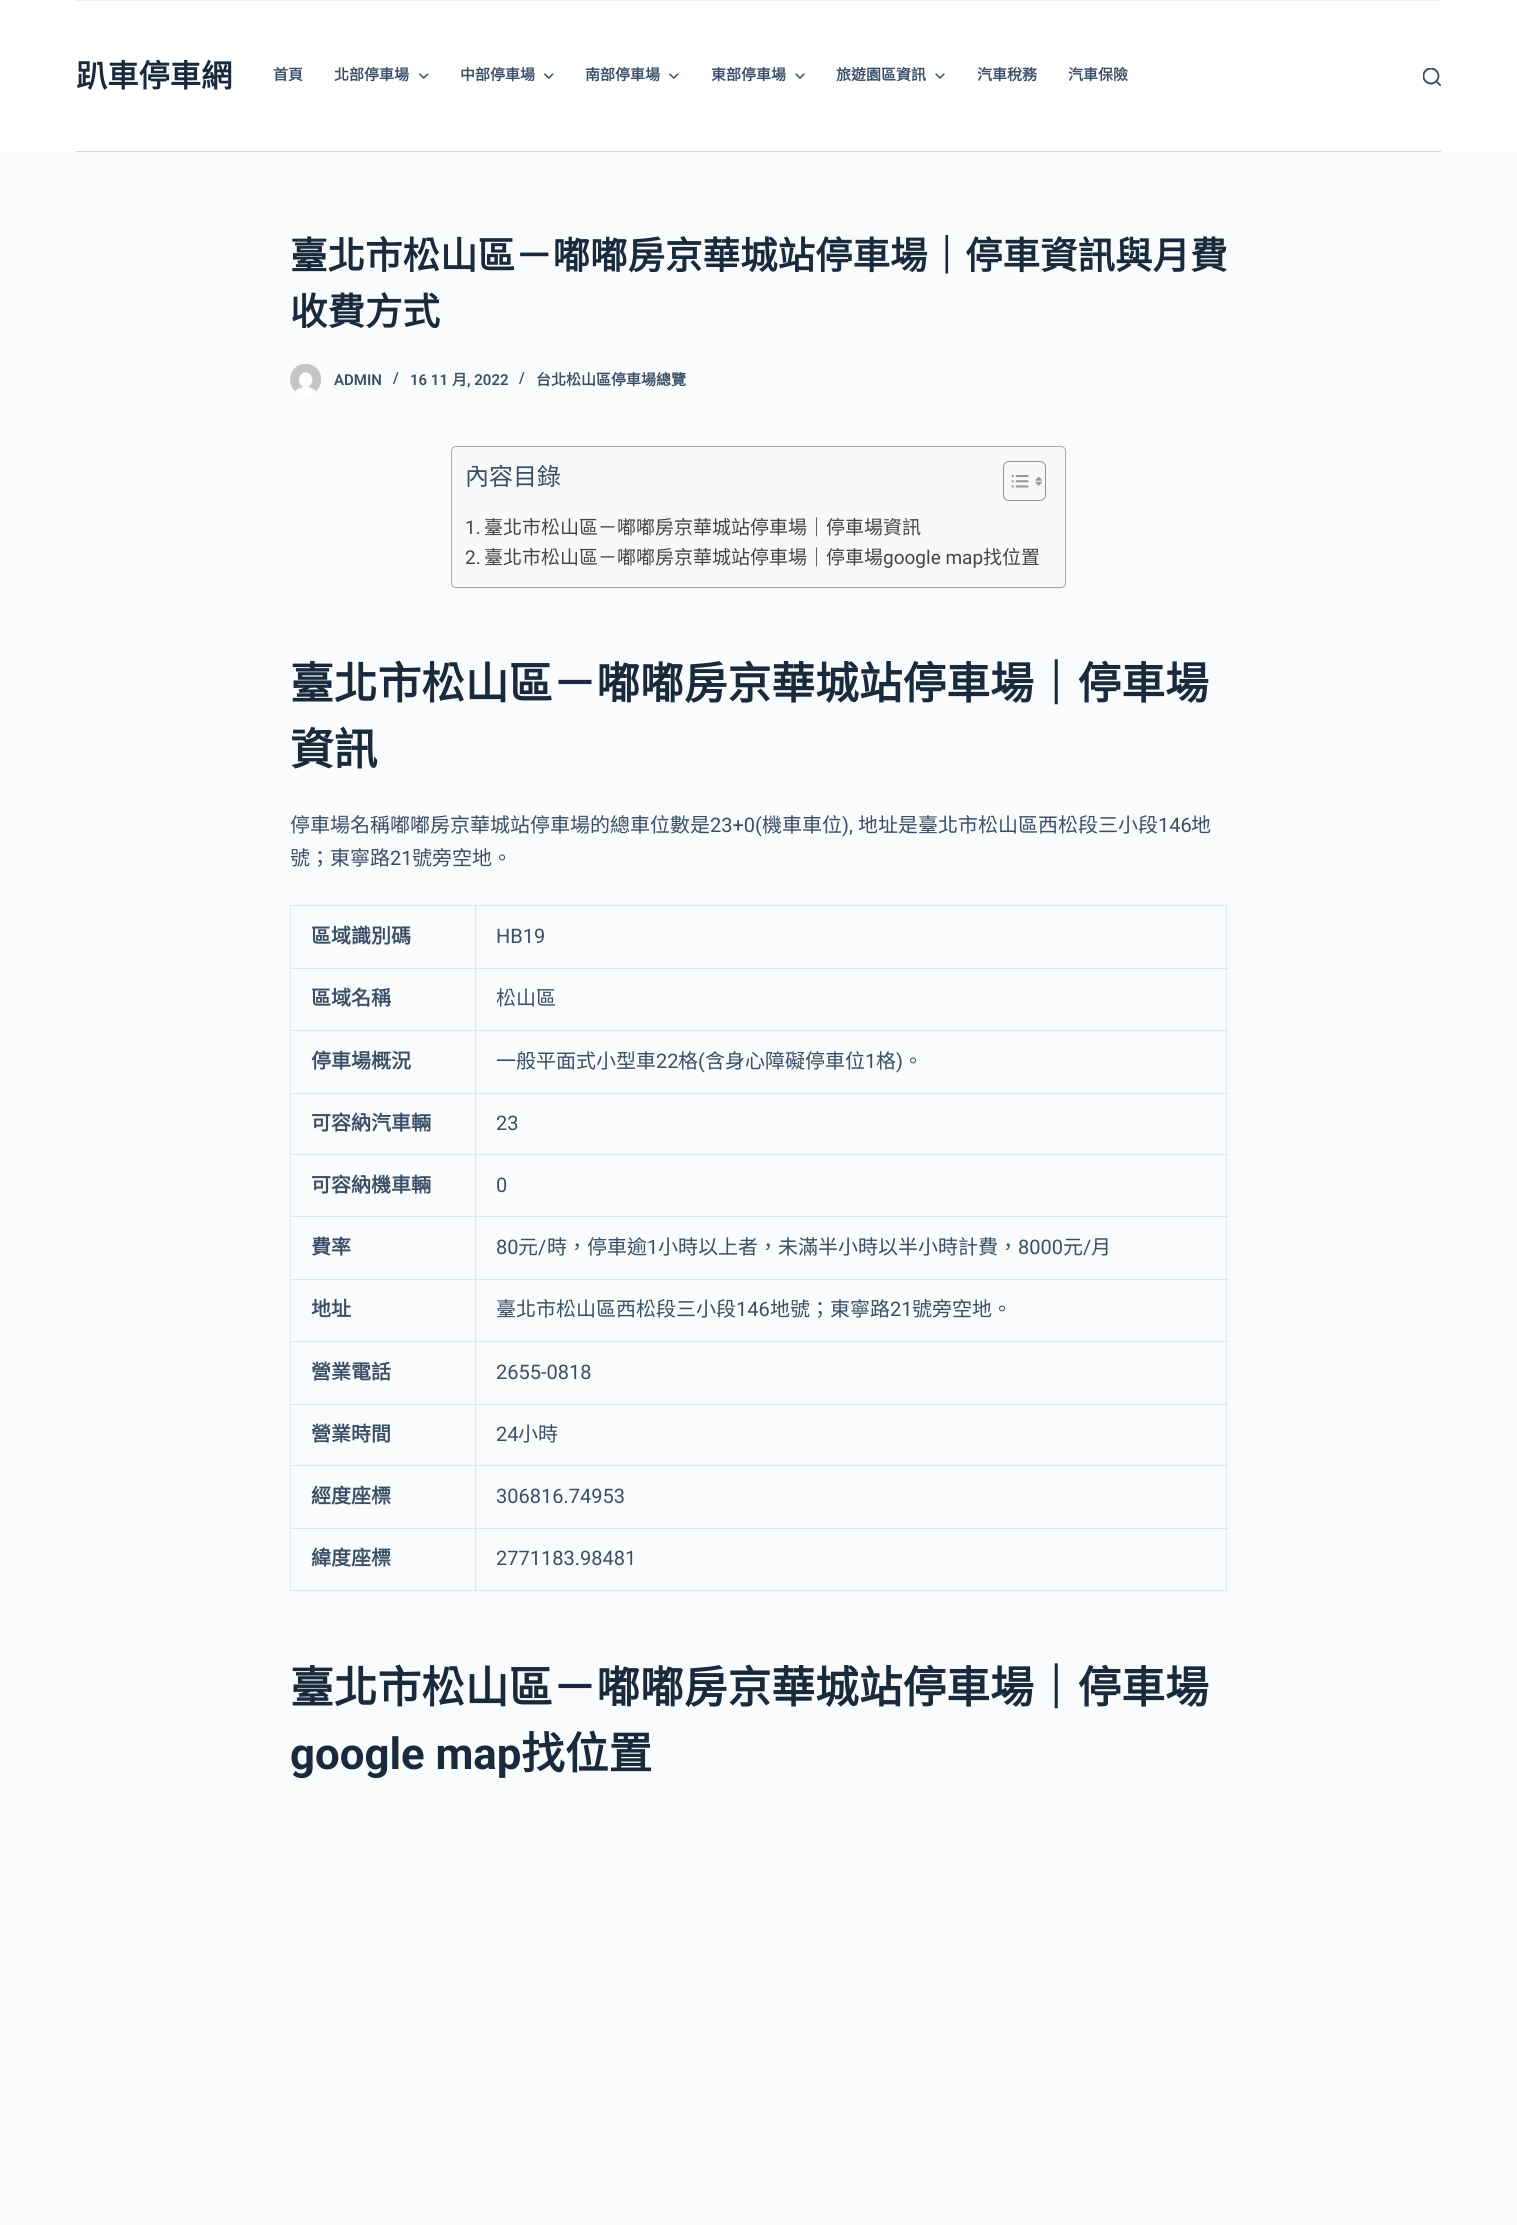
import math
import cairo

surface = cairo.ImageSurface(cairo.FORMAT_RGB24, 1517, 2225)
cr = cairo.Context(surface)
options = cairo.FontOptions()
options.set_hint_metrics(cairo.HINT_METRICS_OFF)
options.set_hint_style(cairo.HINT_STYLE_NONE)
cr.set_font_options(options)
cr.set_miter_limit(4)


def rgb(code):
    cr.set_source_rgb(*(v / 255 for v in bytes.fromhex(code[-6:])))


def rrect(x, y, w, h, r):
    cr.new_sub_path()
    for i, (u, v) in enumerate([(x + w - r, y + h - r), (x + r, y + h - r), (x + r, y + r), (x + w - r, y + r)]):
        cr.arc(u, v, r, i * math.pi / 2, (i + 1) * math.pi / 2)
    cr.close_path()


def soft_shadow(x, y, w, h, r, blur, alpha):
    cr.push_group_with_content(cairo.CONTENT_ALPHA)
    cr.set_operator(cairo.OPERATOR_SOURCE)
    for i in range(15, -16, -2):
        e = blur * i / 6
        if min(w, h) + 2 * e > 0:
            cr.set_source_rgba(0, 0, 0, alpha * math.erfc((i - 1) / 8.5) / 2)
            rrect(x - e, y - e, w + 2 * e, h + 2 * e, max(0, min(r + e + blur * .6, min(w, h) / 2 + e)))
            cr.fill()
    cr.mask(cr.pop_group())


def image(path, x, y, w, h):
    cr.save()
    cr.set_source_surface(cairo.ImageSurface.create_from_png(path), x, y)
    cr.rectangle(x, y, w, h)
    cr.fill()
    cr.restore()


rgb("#fafbfc")
cr.paint()
for x, y, w, h, color in [
    (0, 0, 1517, 153, "#ffffff"),
    (76, 0, 1365, 1, "#eaeff9"),
    (76, 151, 1365, 1, "#ccd7e2"),
]:
    rgb(color)
    cr.rectangle(x, y, w, h)
    cr.fill()
image("img/1.png", 419, 73, 10, 6)
image("img/1.png", 544, 73, 10, 6)
image("img/1.png", 669, 73, 10, 6)
image("img/2.png", 795, 73, 10, 6)
image("img/2.png", 935, 73, 10, 6)
image("img/3.png", 1423, 68, 18, 18)
image("img/4.png", 290, 364, 31, 31)
rgb("#000000")
soft_shadow(451, 448, 615, 141, 5, 0.5, 0.05)
rgb("#f9f9f9")
rrect(451.5, 446.5, 614, 141, 4.5)
cr.fill_preserve()
rgb("#aaaaaa")
cr.set_line_width(1)
cr.stroke()
rrect(1003.5, 461.5, 42, 39, 5.5)
rgb("#999191")
cr.stroke()
image("img/5.png", 1011, 475, 18, 13)
image("img/6.png", 1035, 476, 8, 10)
for x, y, w, h, color in [
    (290, 905, 938, 1, "#e1e8ed"),
    (1226, 905, 1, 686, "#e1e8ed"),
    (290, 1590, 938, 1, "#e1e8ed"),
    (290, 905, 1, 686, "#e1e8ed"),
    (475, 968, 753, 1, "#e1e8ed"),
    (475, 1030, 753, 1, "#e1e8ed"),
    (475, 1093, 753, 1, "#e1e8ed"),
    (475, 1154, 753, 1, "#e1e8ed"),
    (475, 1216, 753, 1, "#e1e8ed"),
    (475, 1279, 753, 1, "#e1e8ed"),
    (475, 1341, 753, 1, "#e1e8ed"),
    (475, 1404, 753, 1, "#e1e8ed"),
    (475, 1465, 753, 1, "#e1e8ed"),
    (475, 1528, 753, 1, "#e1e8ed"),
    (475, 1528, 1, 63, "#e1e8ed"),
    (290, 1528, 186, 1, "#e1e8ed"),
    (475, 1465, 1, 64, "#e1e8ed"),
    (290, 1465, 186, 1, "#e1e8ed"),
    (475, 1404, 1, 62, "#e1e8ed"),
    (290, 1404, 186, 1, "#e1e8ed"),
    (475, 1341, 1, 64, "#e1e8ed"),
    (290, 1341, 186, 1, "#e1e8ed"),
    (475, 1279, 1, 64, "#e1e8ed"),
    (290, 1279, 186, 1, "#e1e8ed"),
    (475, 1216, 1, 64, "#e1e8ed"),
    (290, 1216, 186, 1, "#e1e8ed"),
    (475, 1154, 1, 64, "#e1e8ed"),
    (290, 1154, 186, 1, "#e1e8ed"),
    (475, 1093, 1, 62, "#e1e8ed"),
    (290, 1093, 186, 1, "#e1e8ed"),
    (475, 1030, 1, 64, "#e1e8ed"),
    (290, 1030, 186, 1, "#e1e8ed"),
    (475, 968, 1, 63, "#e1e8ed"),
    (290, 968, 186, 1, "#e1e8ed"),
    (475, 905, 1, 64, "#e1e8ed"),
]:
    rgb(color)
    cr.rectangle(x, y, w, h)
    cr.fill()
cr.select_font_face("Noto Sans CJK TC", cairo.FONT_SLANT_NORMAL, cairo.FONT_WEIGHT_BOLD)
cr.set_font_size(31.25)
rgb("#192a3d")
cr.move_to(76, 87)
cr.show_text("趴車停車網")
cr.set_font_size(15)
rgb("#3a4f66")
for x, y, s in [
    (273, 80, "首頁"),
    (334, 80, "北部停車場"),
    (460, 80, "中部停車場"),
    (585, 80, "南部停車場"),
    (711, 80, "東部停車場"),
    (836, 80, "旅遊園區資訊"),
    (977, 80, "汽車稅務"),
    (1068, 80, "汽車保險"),
]:
    cr.move_to(x, y)
    cr.show_text(s)
cr.set_font_size(37.5)
rgb("#192a3d")
cr.move_to(290, 269)
cr.show_text("臺北市松山區－嘟嘟房京華城站停車場｜停車資訊與月費")
cr.move_to(290, 325)
cr.show_text("收費方式")
cr.select_font_face("Roboto SemiBold")
cr.set_font_size(15)
rgb("#3a4f66")
for x, y, s in [
    (334, 385, "ADMIN"),
    (393, 383, "/"),
    (410, 385, "16 11"),
]:
    cr.move_to(x, y)
    cr.show_text(s)
cr.select_font_face("Noto Sans CJK TC", cairo.FONT_SLANT_NORMAL, cairo.FONT_WEIGHT_BOLD)
cr.move_to(452, 385)
cr.show_text("月")
cr.select_font_face("Roboto SemiBold")
cr.move_to(467, 385)
cr.show_text(", 2022")
cr.move_to(519, 383)
cr.show_text("/")
cr.select_font_face("Noto Sans CJK TC", cairo.FONT_SLANT_NORMAL, cairo.FONT_WEIGHT_BOLD)
cr.move_to(536, 385)
cr.show_text("台北松山區停車場總覽")
cr.select_font_face("Noto Sans CJK TC")
cr.set_font_size(24)
cr.move_to(465, 485)
cr.show_text("內容目錄")
cr.select_font_face("Roboto")
cr.set_font_size(19)
rgb("#444444")
cr.move_to(465, 534)
cr.show_text("1.")
cr.select_font_face("Noto Sans CJK TC")
cr.move_to(484, 534)
cr.show_text("臺北市松山區－嘟嘟房京華城站停車場｜停車場資訊")
cr.select_font_face("Roboto")
cr.move_to(465, 564)
cr.show_text("2.")
cr.select_font_face("Noto Sans CJK TC")
cr.move_to(484, 564)
cr.show_text("臺北市松山區－嘟嘟房京華城站停車場｜停車場")
cr.select_font_face("Roboto")
cr.move_to(883, 564)
cr.show_text("google map")
cr.select_font_face("Noto Sans CJK TC")
cr.move_to(983, 564)
cr.show_text("找位置")
cr.select_font_face("Noto Sans CJK TC", cairo.FONT_SLANT_NORMAL, cairo.FONT_WEIGHT_BOLD)
cr.set_font_size(43.75)
rgb("#192a3d")
cr.move_to(290, 699)
cr.show_text("臺北市松山區－嘟嘟房京華城站停車場｜停車場")
cr.move_to(290, 765)
cr.show_text("資訊")
cr.select_font_face("Noto Sans CJK TC")
cr.set_font_size(20)
rgb("#3a4f66")
cr.move_to(290, 832)
cr.show_text("停車場名稱嘟嘟房京華城站停車場的總車位數是")
cr.select_font_face("Roboto")
cr.move_to(710, 832)
cr.show_text("23+0(")
cr.select_font_face("Noto Sans CJK TC")
cr.move_to(762, 832)
cr.show_text("機車車位")
cr.select_font_face("Roboto")
cr.move_to(842, 832)
cr.show_text("),")
cr.select_font_face("Noto Sans CJK TC")
cr.move_to(858, 832)
cr.show_text("地址是臺北市松山區西松段三小段")
cr.select_font_face("Roboto")
cr.move_to(1158, 832)
cr.show_text("146")
cr.select_font_face("Noto Sans CJK TC")
cr.move_to(1191, 832)
cr.show_text("地")
cr.move_to(290, 865)
cr.show_text("號；東寧路")
cr.select_font_face("Roboto")
cr.move_to(390, 865)
cr.show_text("21")
cr.select_font_face("Noto Sans CJK TC")
cr.move_to(412, 865)
cr.show_text("號旁空地。")
cr.select_font_face("Noto Sans CJK TC", cairo.FONT_SLANT_NORMAL, cairo.FONT_WEIGHT_BOLD)
cr.move_to(311, 943)
cr.show_text("區域識別碼")
cr.select_font_face("Roboto")
cr.move_to(496, 943)
cr.show_text("HB19")
cr.select_font_face("Noto Sans CJK TC", cairo.FONT_SLANT_NORMAL, cairo.FONT_WEIGHT_BOLD)
cr.move_to(311, 1005)
cr.show_text("區域名稱")
cr.select_font_face("Noto Sans CJK TC")
cr.move_to(496, 1005)
cr.show_text("松山區")
cr.select_font_face("Noto Sans CJK TC", cairo.FONT_SLANT_NORMAL, cairo.FONT_WEIGHT_BOLD)
cr.move_to(311, 1068)
cr.show_text("停車場概況")
cr.select_font_face("Noto Sans CJK TC")
cr.move_to(496, 1068)
cr.show_text("一般平面式小型車")
cr.select_font_face("Roboto")
cr.move_to(656, 1068)
cr.show_text("22")
cr.select_font_face("Noto Sans CJK TC")
cr.move_to(678, 1068)
cr.show_text("格")
cr.select_font_face("Roboto")
cr.move_to(698, 1068)
cr.show_text("(")
cr.select_font_face("Noto Sans CJK TC")
cr.move_to(705, 1068)
cr.show_text("含身心障礙停車位")
cr.select_font_face("Roboto")
cr.move_to(865, 1068)
cr.show_text("1")
cr.select_font_face("Noto Sans CJK TC")
cr.move_to(876, 1068)
cr.show_text("格")
cr.select_font_face("Roboto")
cr.move_to(896, 1068)
cr.show_text(")")
cr.select_font_face("Noto Sans CJK TC")
cr.move_to(903, 1068)
cr.show_text("。")
cr.select_font_face("Noto Sans CJK TC", cairo.FONT_SLANT_NORMAL, cairo.FONT_WEIGHT_BOLD)
cr.move_to(311, 1130)
cr.show_text("可容納汽車輛")
cr.select_font_face("Roboto")
cr.move_to(496, 1130)
cr.show_text("23")
cr.select_font_face("Noto Sans CJK TC", cairo.FONT_SLANT_NORMAL, cairo.FONT_WEIGHT_BOLD)
cr.move_to(311, 1192)
cr.show_text("可容納機車輛")
cr.select_font_face("Roboto")
cr.move_to(496, 1192)
cr.show_text("0")
cr.select_font_face("Noto Sans CJK TC", cairo.FONT_SLANT_NORMAL, cairo.FONT_WEIGHT_BOLD)
cr.move_to(311, 1254)
cr.show_text("費率")
cr.select_font_face("Roboto")
cr.move_to(496, 1254)
cr.show_text("80")
cr.select_font_face("Noto Sans CJK TC")
cr.move_to(518, 1254)
cr.show_text("元")
cr.select_font_face("Roboto")
cr.move_to(538, 1254)
cr.show_text("/")
cr.select_font_face("Noto Sans CJK TC")
cr.move_to(547, 1254)
cr.show_text("時，停車逾")
cr.select_font_face("Roboto")
cr.move_to(647, 1254)
cr.show_text("1")
cr.select_font_face("Noto Sans CJK TC")
cr.move_to(658, 1254)
cr.show_text("小時以上者，未滿半小時以半小時計費，")
cr.select_font_face("Roboto")
cr.move_to(1018, 1254)
cr.show_text("8000")
cr.select_font_face("Noto Sans CJK TC")
cr.move_to(1063, 1254)
cr.show_text("元")
cr.select_font_face("Roboto")
cr.move_to(1083, 1254)
cr.show_text("/")
cr.select_font_face("Noto Sans CJK TC")
cr.move_to(1091, 1254)
cr.show_text("月")
cr.select_font_face("Noto Sans CJK TC", cairo.FONT_SLANT_NORMAL, cairo.FONT_WEIGHT_BOLD)
cr.move_to(311, 1316)
cr.show_text("地址")
cr.select_font_face("Noto Sans CJK TC")
cr.move_to(496, 1316)
cr.show_text("臺北市松山區西松段三小段")
cr.select_font_face("Roboto")
cr.move_to(736, 1316)
cr.show_text("146")
cr.select_font_face("Noto Sans CJK TC")
cr.move_to(770, 1316)
cr.show_text("地號；東寧路")
cr.select_font_face("Roboto")
cr.move_to(890, 1316)
cr.show_text("21")
cr.select_font_face("Noto Sans CJK TC")
cr.move_to(912, 1316)
cr.show_text("號旁空地。")
cr.select_font_face("Noto Sans CJK TC", cairo.FONT_SLANT_NORMAL, cairo.FONT_WEIGHT_BOLD)
cr.move_to(311, 1379)
cr.show_text("營業電話")
cr.select_font_face("Roboto")
cr.move_to(496, 1379)
cr.show_text("2655-0818")
cr.select_font_face("Noto Sans CJK TC", cairo.FONT_SLANT_NORMAL, cairo.FONT_WEIGHT_BOLD)
cr.move_to(311, 1441)
cr.show_text("營業時間")
cr.select_font_face("Roboto")
cr.move_to(496, 1441)
cr.show_text("24")
cr.select_font_face("Noto Sans CJK TC")
cr.move_to(518, 1441)
cr.show_text("小時")
cr.select_font_face("Noto Sans CJK TC", cairo.FONT_SLANT_NORMAL, cairo.FONT_WEIGHT_BOLD)
cr.move_to(311, 1503)
cr.show_text("經度座標")
cr.select_font_face("Roboto")
cr.move_to(496, 1503)
cr.show_text("306816.74953")
cr.select_font_face("Noto Sans CJK TC", cairo.FONT_SLANT_NORMAL, cairo.FONT_WEIGHT_BOLD)
cr.move_to(311, 1565)
cr.show_text("緯度座標")
cr.select_font_face("Roboto")
cr.move_to(496, 1565)
cr.show_text("2771183.98481")
cr.select_font_face("Noto Sans CJK TC", cairo.FONT_SLANT_NORMAL, cairo.FONT_WEIGHT_BOLD)
cr.set_font_size(43.75)
rgb("#192a3d")
cr.move_to(290, 1703)
cr.show_text("臺北市松山區－嘟嘟房京華城站停車場｜停車場")
cr.select_font_face("Roboto", cairo.FONT_SLANT_NORMAL, cairo.FONT_WEIGHT_BOLD)
cr.move_to(290, 1769)
cr.show_text("google map")
cr.select_font_face("Noto Sans CJK TC", cairo.FONT_SLANT_NORMAL, cairo.FONT_WEIGHT_BOLD)
cr.move_to(521, 1769)
cr.show_text("找位置")
surface.write_to_png("page.png")
